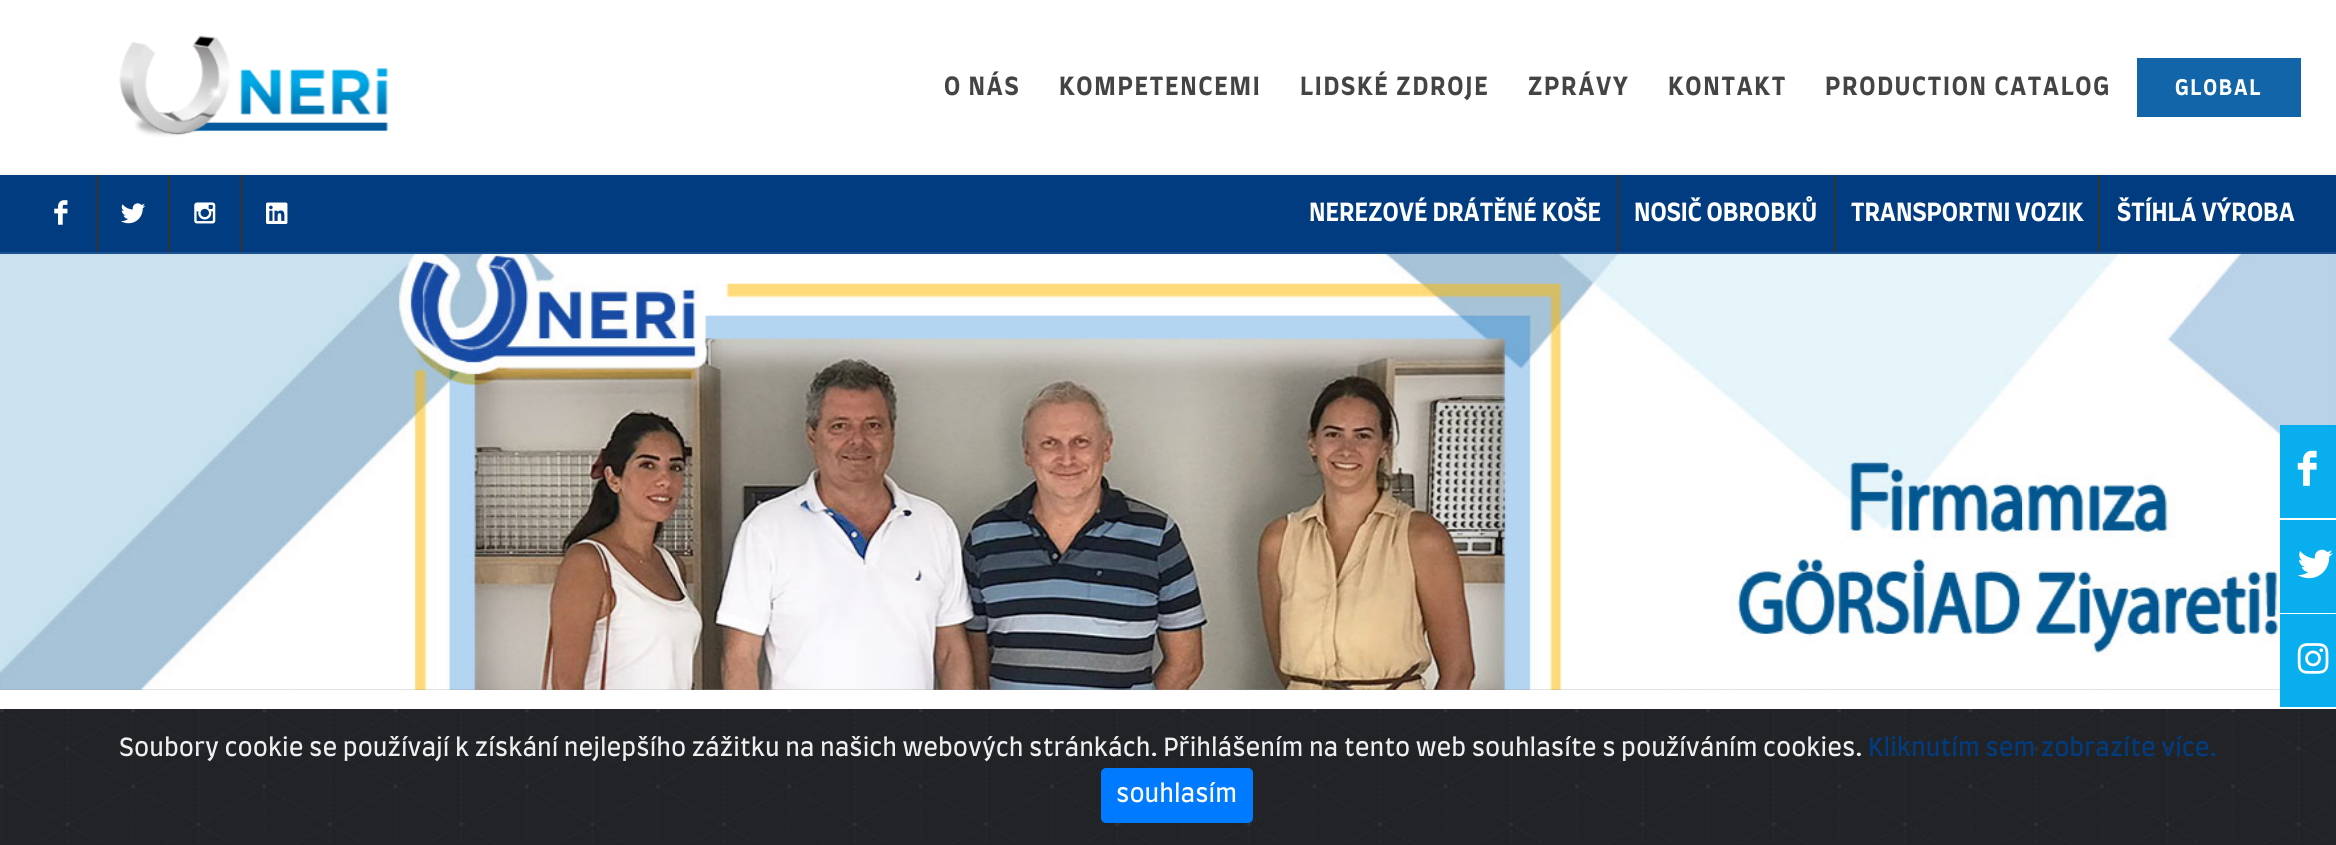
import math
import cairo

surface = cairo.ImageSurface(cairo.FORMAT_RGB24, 2336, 845)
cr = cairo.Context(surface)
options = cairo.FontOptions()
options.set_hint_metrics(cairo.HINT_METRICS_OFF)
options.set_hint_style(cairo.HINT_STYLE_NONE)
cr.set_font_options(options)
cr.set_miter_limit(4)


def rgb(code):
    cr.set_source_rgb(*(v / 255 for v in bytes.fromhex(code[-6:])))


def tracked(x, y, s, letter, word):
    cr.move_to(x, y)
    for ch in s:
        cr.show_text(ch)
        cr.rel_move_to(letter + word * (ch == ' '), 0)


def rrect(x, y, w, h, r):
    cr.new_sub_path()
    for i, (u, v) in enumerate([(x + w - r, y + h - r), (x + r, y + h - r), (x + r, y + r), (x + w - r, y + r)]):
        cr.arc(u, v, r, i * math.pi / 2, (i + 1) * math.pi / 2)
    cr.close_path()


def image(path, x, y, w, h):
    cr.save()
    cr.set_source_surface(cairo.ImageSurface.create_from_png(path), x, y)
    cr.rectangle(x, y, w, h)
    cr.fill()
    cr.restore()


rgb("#ffffff")
cr.paint()
rgb("#f5f5f5")
cr.rectangle(0, 173, 2336, 2)
cr.fill()
image("img/1.png", 119, 35, 270, 102)
for x, y, w, h, color in [
    (2137, 58, 164, 59, "#1265a8"),
    (0, 175, 2336, 77, "#013c80"),
    (0, 252, 2336, 2, "#1a508d"),
]:
    rgb(color)
    cr.rectangle(x, y, w, h)
    cr.fill()
image("img/2.png", 54, 200, 14, 25)
rgb("#333333")
cr.rectangle(96, 175, 2, 77)
cr.fill()
image("img/3.png", 121, 203, 25, 21)
cr.rectangle(168, 175, 2, 77)
cr.fill()
image("img/4.png", 194, 202, 22, 22)
cr.rectangle(240, 175, 2, 77)
cr.fill()
image("img/5.png", 266, 202, 22, 22)
for x, y, w, h, color in [
    (1617, 175, 2, 77, "#333333"),
    (1834, 175, 2, 77, "#333333"),
    (2098, 175, 2, 77, "#333333"),
]:
    rgb(color)
    cr.rectangle(x, y, w, h)
    cr.fill()
image("img/6.png", 0, 254, 2336, 436)
image("img/7.png", 0, 254, 2336, 436)
image("img/8.png", 0, 254, 2336, 436)
rgb("#09aeef")
cr.rectangle(2280, 425, 56, 93)
cr.fill()
image("img/9.png", 2297, 450, 20, 36)
cr.rectangle(2280, 520, 56, 93)
cr.fill()
image("img/10.png", 2298, 549, 35, 30)
cr.rectangle(2280, 614, 56, 93)
cr.fill()
image("img/11.png", 2297, 643, 32, 31)
rgb("#212327")
cr.rectangle(0, 709, 2336, 136)
cr.fill()
image("img/12.png", 0, 709, 2333, 135)
rgb("#007bff")
rrect(1102, 769, 150, 53, 4)
cr.fill_preserve()
cr.stroke()
cr.select_font_face("Farro", cairo.FONT_SLANT_NORMAL, cairo.FONT_WEIGHT_BOLD)
cr.set_font_size(24.5)
rgb("#444444")
for x, y, s in [
    (944, 95, "O NÁS"),
    (1059, 95, "KOMPETENCEMI"),
    (1300, 95, "LIDSKÉ ZDROJE"),
    (1528, 95, "ZPRÁVY"),
    (1668, 95, "KONTAKT"),
    (1825, 95, "PRODUCTION CATALOG"),
]:
    tracked(x, y, s, 1.75, 0)
cr.set_font_size(21)
rgb("#ffffff")
tracked(2175, 95, "GLOBAL", 1.75, 0)
cr.set_font_size(24.5)
for x, y, s in [
    (1309, 221, "NEREZOVÉ DRÁTĚNÉ KOŠE"),
    (1634, 221, "NOSIČ OBROBKŮ"),
    (1851, 221, "TRANSPORTNI VOZIK"),
    (2117, 221, "ŠTÍHLÁ VÝROBA"),
]:
    cr.move_to(x, y)
    cr.show_text(s)
cr.select_font_face("Farro")
rgb("#ecf0f1")
cr.move_to(119, 756)
cr.show_text("Soubory cookie se používají k získání nejlepšího zážitku na našich webových stránkách. Přihlášením na tento web souhlasíte s používáním cookies.")
rgb("#013c80")
cr.move_to(1868, 756)
cr.show_text("Kliknutím sem zobrazíte více.")
rgb("#ffffff")
cr.move_to(1116, 802)
cr.show_text("souhlasím")
surface.write_to_png("page.png")
